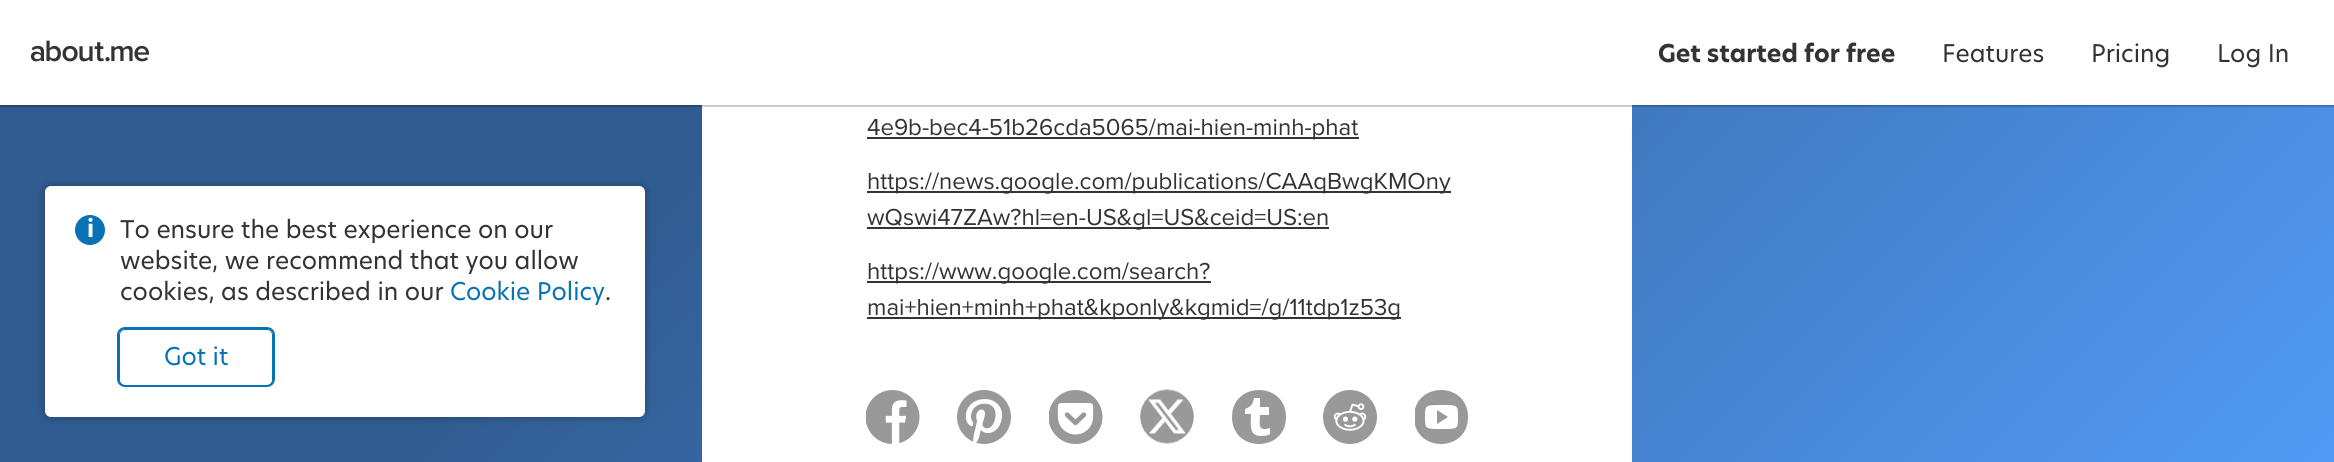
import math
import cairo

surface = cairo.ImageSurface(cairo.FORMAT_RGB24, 2334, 462)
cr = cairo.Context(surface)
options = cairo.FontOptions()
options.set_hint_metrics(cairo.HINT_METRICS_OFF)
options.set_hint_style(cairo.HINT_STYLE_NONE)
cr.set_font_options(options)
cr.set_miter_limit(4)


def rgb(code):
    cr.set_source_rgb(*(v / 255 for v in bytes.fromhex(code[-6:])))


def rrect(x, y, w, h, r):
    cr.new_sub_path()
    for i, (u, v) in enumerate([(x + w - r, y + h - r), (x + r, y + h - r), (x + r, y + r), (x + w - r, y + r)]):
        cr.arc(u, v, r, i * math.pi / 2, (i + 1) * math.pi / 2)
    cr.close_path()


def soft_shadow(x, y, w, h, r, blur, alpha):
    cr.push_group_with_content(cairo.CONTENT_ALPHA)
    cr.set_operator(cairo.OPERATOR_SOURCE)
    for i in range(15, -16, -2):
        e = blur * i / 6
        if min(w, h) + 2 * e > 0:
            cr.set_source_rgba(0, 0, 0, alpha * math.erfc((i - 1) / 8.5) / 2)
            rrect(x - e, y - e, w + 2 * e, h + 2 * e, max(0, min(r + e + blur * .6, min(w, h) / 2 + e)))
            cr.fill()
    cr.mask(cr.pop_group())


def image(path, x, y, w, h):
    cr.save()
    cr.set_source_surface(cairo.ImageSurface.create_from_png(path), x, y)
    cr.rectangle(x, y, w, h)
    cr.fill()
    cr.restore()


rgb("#ffffff")
cr.paint()
gradient = cairo.LinearGradient(468, -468, 1866, 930)
gradient.add_color_stop_rgba(0, 0.188, 0.357, 0.565, 1)
gradient.add_color_stop_rgba(0.3, 0.188, 0.357, 0.565, 1)
gradient.add_color_stop_rgba(1, 0.322, 0.608, 0.961, 1)
cr.set_source(gradient)
cr.rectangle(0, 107, 2334, 355)
cr.fill()
gradient = cairo.LinearGradient(468, -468, 1866, 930)
gradient.add_color_stop_rgba(0, 0.149, 0.286, 0.451, 1)
gradient.add_color_stop_rgba(0.3, 0.149, 0.286, 0.451, 1)
gradient.add_color_stop_rgba(1, 0.259, 0.486, 0.769, 1)
cr.set_source(gradient)
cr.rectangle(0, 105, 2334, 2)
cr.fill()
rgb("#000000")
soft_shadow(45, 186, 600, 231, 6, 4, 0.3)
rgb("#ffffff")
rrect(45, 186, 600, 231, 6)
cr.fill()
rgb("#0872b4")
cr.arc(90, 230, 15, 0, 2 * math.pi)
cr.fill()
image("img/1.png", 88, 217, 5, 20)
rrect(119.5, 329.5, 153, 56, 5.5)
cr.set_line_width(1)
cr.stroke()
rrect(118, 328, 156, 58, 7)
cr.set_line_width(2)
cr.stroke()
image("img/2.png", 30, 40, 120, 22)
for x, y, w, h, color in [
    (702, 107, 930, 355, "#ffffff"),
    (702, 105, 930, 2, "#cccccc"),
    (867, 137, 492, 2, "#333333"),
    (867, 191, 584, 2, "#333333"),
    (867, 227, 462, 2, "#333333"),
    (867, 281, 344, 2, "#333333"),
    (867, 317, 534, 2, "#333333"),
]:
    rgb(color)
    cr.rectangle(x, y, w, h)
    cr.fill()
image("img/3.png", 866, 390, 54, 54)
image("img/4.png", 957, 390, 54, 54)
image("img/5.png", 1049, 390, 54, 54)
image("img/6.png", 1140, 389, 54, 55)
rgb("#999999")
cr.new_path()
cr.move_to(1286, 417)
cr.curve_to(1286, 453, 1232, 453, 1232, 417)
cr.curve_to(1232, 381, 1286, 381, 1286, 417)
cr.close_path()
cr.move_to(1270, 428)
cr.curve_to(1257, 432, 1260, 424, 1260, 415)
cr.line_to(1269, 415)
cr.line_to(1269, 407)
cr.line_to(1260, 407)
cr.line_to(1260, 398)
cr.line_to(1254, 398)
cr.curve_to(1253, 405, 1250, 407, 1245, 409)
cr.line_to(1245, 414)
cr.line_to(1251, 414)
cr.curve_to(1251, 423, 1248, 436, 1261, 436)
cr.curve_to(1264, 436, 1267, 436, 1270, 434)
cr.close_path()
cr.fill()
image("img/7.png", 1323, 390, 54, 54)
cr.save()
cr.rectangle(1415, 390, 54, 54)
cr.clip()
cr.new_path()
cr.move_to(1468, 417)
cr.curve_to(1468, 453, 1414, 453, 1414, 417)
cr.curve_to(1414, 381, 1468, 381, 1468, 417)
cr.close_path()
cr.move_to(1458, 417)
cr.curve_to(1458, 405, 1458, 405, 1442, 405)
cr.curve_to(1425, 405, 1425, 405, 1425, 417)
cr.curve_to(1425, 429, 1425, 429, 1442, 429)
cr.curve_to(1458, 429, 1458, 429, 1458, 417)
cr.close_path()
cr.move_to(1437, 410)
cr.line_to(1448, 417)
cr.line_to(1437, 424)
cr.close_path()
cr.fill()
cr.restore()
cr.select_font_face("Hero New")
cr.set_font_size(24)
rgb("#333333")
for x, y, s in [
    (120, 238, "To ensure the best experience on our"),
    (120, 269, "website, we recommend that you allow"),
    (120, 300, "cookies, as described in our"),
]:
    cr.move_to(x, y)
    cr.show_text(s)
rgb("#0872b4")
cr.move_to(450, 300)
cr.show_text("Cookie Policy")
rgb("#333333")
cr.move_to(605, 300)
cr.show_text(".")
rgb("#0872b4")
cr.move_to(164, 365)
cr.show_text("Got it")
cr.select_font_face("Hero New", cairo.FONT_SLANT_NORMAL, cairo.FONT_WEIGHT_BOLD)
rgb("#333333")
cr.move_to(1658, 62)
cr.show_text("Get started for free")
cr.select_font_face("Hero New")
for x, y, s in [
    (1942, 62, "Features"),
    (2091, 62, "Pricing"),
    (2217, 62, "Log In"),
]:
    cr.move_to(x, y)
    cr.show_text(s)
cr.select_font_face("Proxima Nova")
for x, y, s in [
    (867, 135, "4e9b-bec4-51b26cda5065/mai-hien-minh-phat"),
    (867, 189, "https://news.google.com/publications/CAAqBwgKMOny"),
    (867, 225, "wQswi47ZAw?hl=en-US&gl=US&ceid=US:en"),
    (867, 279, "https://www.google.com/search?"),
    (867, 315, "mai+hien+minh+phat&kponly&kgmid=/g/11tdp1z53g"),
]:
    cr.move_to(x, y)
    cr.show_text(s)
surface.write_to_png("page.png")
